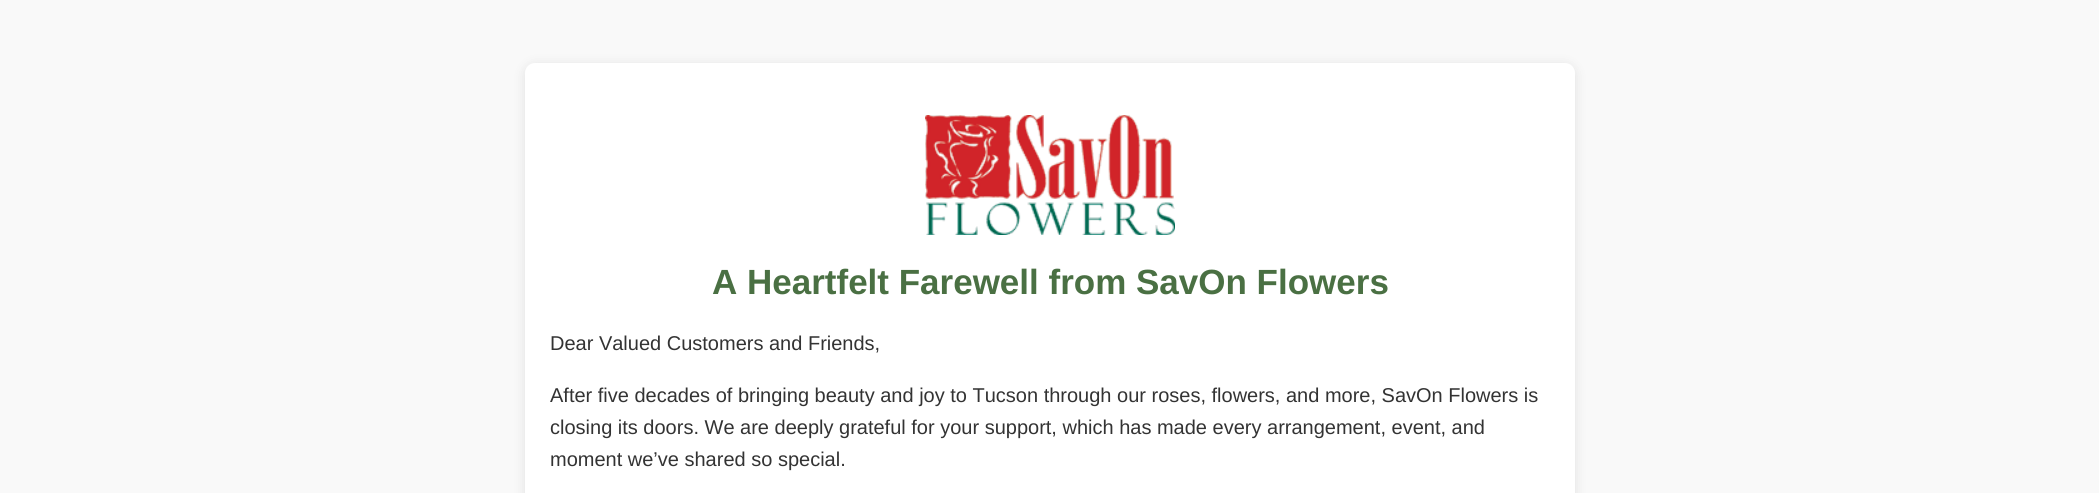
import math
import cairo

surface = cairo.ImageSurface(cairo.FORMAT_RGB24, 2099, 493)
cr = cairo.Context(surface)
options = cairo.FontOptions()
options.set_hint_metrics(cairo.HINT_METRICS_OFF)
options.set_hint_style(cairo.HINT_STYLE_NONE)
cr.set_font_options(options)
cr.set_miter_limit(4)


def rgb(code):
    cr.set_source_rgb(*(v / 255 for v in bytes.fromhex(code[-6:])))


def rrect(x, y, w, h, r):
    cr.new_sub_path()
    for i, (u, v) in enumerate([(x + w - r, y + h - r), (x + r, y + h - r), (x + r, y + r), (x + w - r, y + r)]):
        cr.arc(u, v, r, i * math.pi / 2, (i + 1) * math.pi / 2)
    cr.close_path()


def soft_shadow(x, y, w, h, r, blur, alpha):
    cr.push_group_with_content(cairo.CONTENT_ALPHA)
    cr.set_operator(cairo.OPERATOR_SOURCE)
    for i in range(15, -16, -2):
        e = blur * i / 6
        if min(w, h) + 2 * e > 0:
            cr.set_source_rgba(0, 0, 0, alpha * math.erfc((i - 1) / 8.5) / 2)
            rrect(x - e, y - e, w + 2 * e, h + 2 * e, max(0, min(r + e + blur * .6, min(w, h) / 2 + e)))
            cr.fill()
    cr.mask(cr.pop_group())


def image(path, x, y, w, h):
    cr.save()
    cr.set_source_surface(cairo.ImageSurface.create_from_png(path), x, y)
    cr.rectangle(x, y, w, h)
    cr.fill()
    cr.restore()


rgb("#f9f9f9")
cr.paint()
rgb("#000000")
soft_shadow(525, 65, 1050, 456, 10, 6, 0.1)
rgb("#ffffff")
rrect(525, 63, 1050, 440, 10)
cr.fill()
image("img/1.png", 925, 115, 250, 120)
cr.select_font_face("Liberation Sans", cairo.FONT_SLANT_NORMAL, cairo.FONT_WEIGHT_BOLD)
cr.set_font_size(35)
rgb("#4a7043")
cr.move_to(712, 294)
cr.show_text("A Heartfelt Farewell from SavOn Flowers")
cr.select_font_face("Liberation Sans")
cr.set_font_size(20)
rgb("#333333")
for x, y, s in [
    (550, 350, "Dear Valued Customers and Friends,"),
    (550, 402, "After five decades of bringing beauty and joy to Tucson through our roses, flowers, and more, SavOn Flowers is"),
    (550, 434, "closing its doors. We are deeply grateful for your support, which has made every arrangement, event, and"),
    (550, 466, "moment we’ve shared so special."),
]:
    cr.move_to(x, y)
    cr.show_text(s)
surface.write_to_png("page.png")
